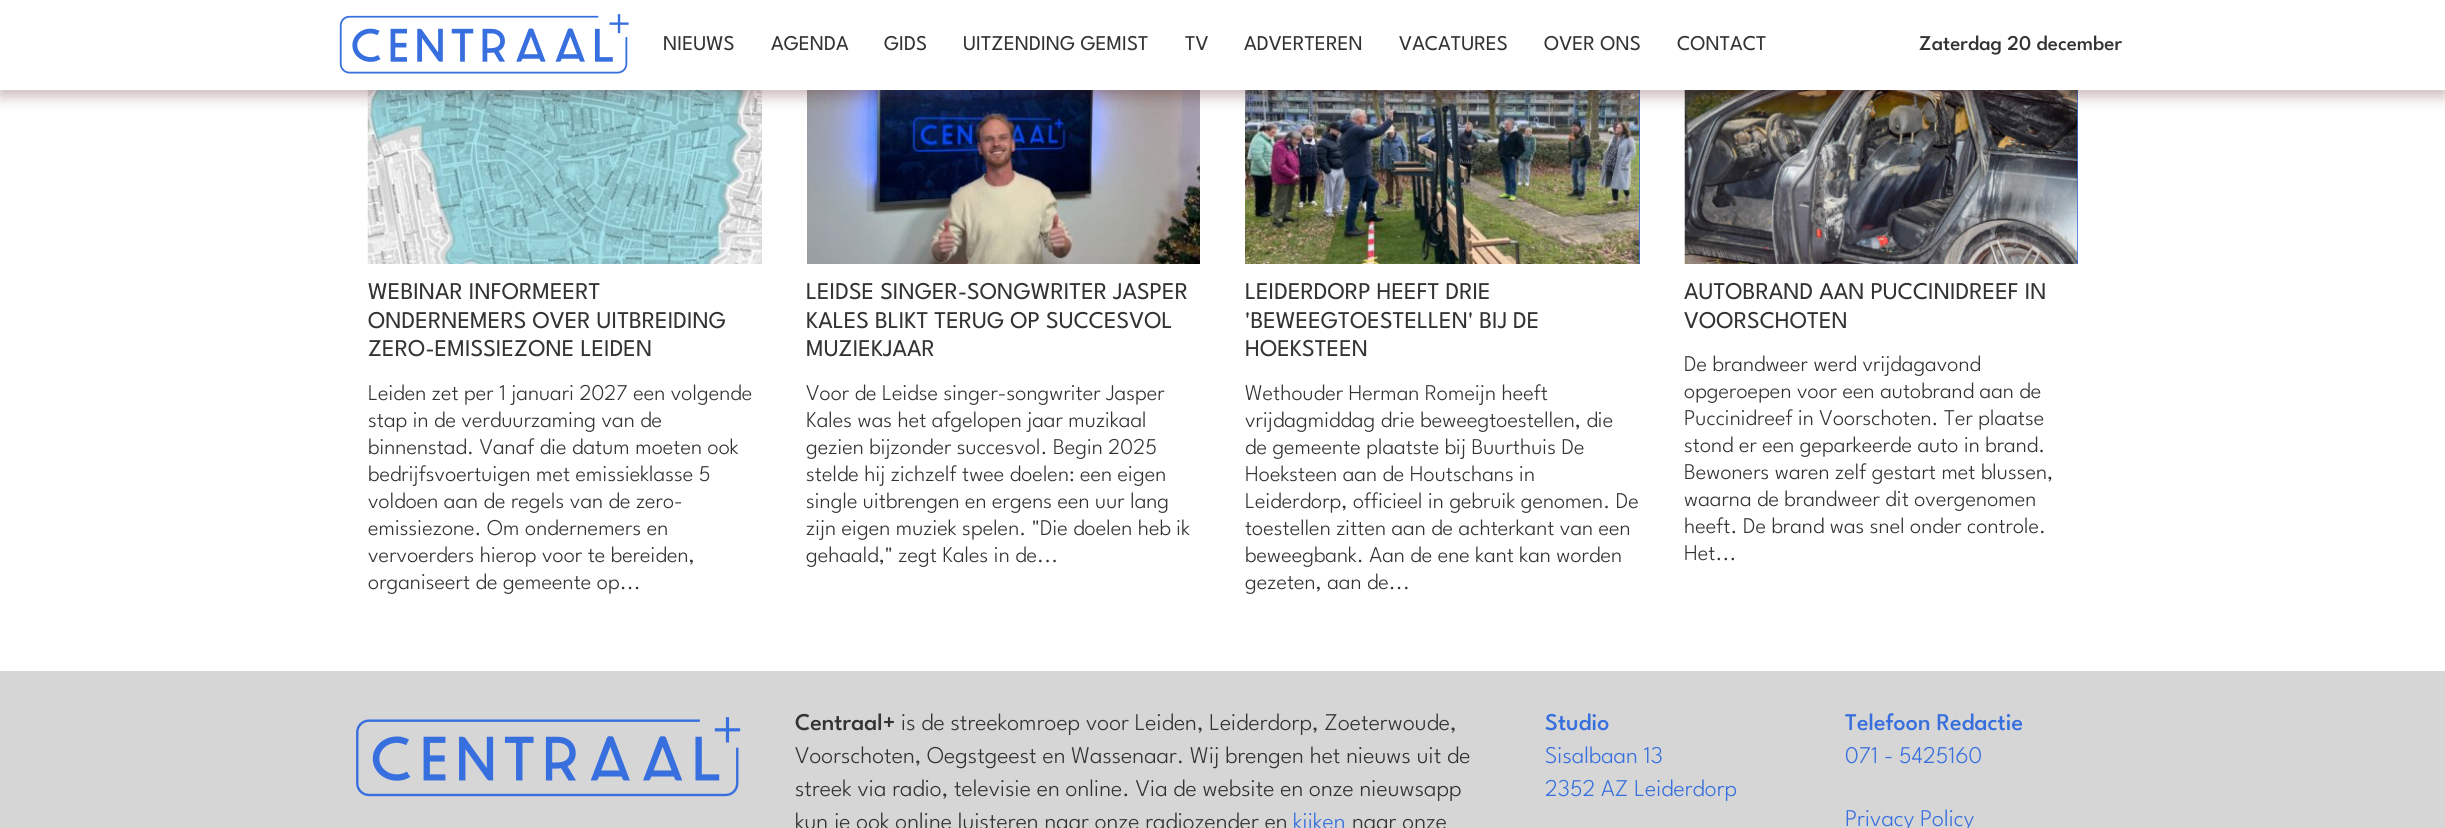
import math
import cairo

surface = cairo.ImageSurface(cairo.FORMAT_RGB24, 2445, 828)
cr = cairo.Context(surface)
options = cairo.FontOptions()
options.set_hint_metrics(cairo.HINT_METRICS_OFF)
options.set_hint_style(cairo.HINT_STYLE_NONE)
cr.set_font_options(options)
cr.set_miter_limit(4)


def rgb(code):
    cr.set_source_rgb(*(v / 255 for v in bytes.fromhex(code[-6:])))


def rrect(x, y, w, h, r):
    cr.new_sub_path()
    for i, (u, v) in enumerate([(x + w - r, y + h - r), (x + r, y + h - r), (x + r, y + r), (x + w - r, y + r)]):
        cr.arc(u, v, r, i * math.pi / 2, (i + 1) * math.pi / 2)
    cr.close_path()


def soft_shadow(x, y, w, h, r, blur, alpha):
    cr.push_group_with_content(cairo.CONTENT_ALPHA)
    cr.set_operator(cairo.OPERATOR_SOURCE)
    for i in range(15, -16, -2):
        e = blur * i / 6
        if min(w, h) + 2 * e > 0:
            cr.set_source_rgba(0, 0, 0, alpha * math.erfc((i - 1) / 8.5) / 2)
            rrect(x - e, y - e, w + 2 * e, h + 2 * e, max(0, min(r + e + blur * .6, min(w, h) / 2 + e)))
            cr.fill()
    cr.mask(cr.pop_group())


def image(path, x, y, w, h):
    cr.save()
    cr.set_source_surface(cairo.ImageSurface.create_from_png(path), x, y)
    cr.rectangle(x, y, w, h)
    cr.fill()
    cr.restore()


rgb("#ffffff")
cr.paint()
image("img/2.png", 367, 90, 395, 174)
image("img/3.png", 807, 90, 393, 174)
rgb("#376fde")
cr.rectangle(1639, 90, 1, 174)
cr.fill()
image("img/4.png", 1245, 90, 395, 174)
cr.rectangle(2077, 90, 1, 174)
cr.fill()
image("img/5.png", 1684, 90, 394, 174)
rgb("#430b0a")
soft_shadow(0, 6, 2445, 90, 0, 7.5, 0.3)
rgb("#ffffff")
cr.rectangle(0, 0, 2445, 90)
cr.fill()
image("img/1.png", 339, 14, 290, 60)
rgb("#d6d6d6")
cr.rectangle(0, 671, 2445, 157)
cr.fill()
image("img/6.png", 356, 717, 385, 80)
cr.select_font_face("League Spartan")
cr.set_font_size(21)
rgb("#333333")
for x, y, s in [
    (663, 50, "NIEUWS"),
    (771, 50, "AGENDA"),
    (884, 50, "GIDS"),
    (963, 50, "UITZENDING GEMIST"),
    (1185, 50, "TV"),
    (1244, 50, "ADVERTEREN"),
    (1399, 50, "VACATURES"),
    (1544, 50, "OVER ONS"),
    (1677, 50, "CONTACT"),
]:
    cr.move_to(x, y)
    cr.show_text(s)
cr.select_font_face("League Spartan Medium")
cr.move_to(1919, 50)
cr.show_text("Zaterdag 20 december")
cr.select_font_face("League Spartan")
cr.set_font_size(24)
for x, y, s in [
    (368, 299, "WEBINAR INFORMEERT"),
    (368, 328, "ONDERNEMERS OVER UITBREIDING"),
    (368, 356, "ZERO-EMISSIEZONE LEIDEN"),
]:
    cr.move_to(x, y)
    cr.show_text(s)
cr.select_font_face("League Spartan Light")
cr.set_font_size(22.5)
for x, y, s in [
    (368, 400, "Leiden zet per 1 januari 2027 een volgende"),
    (368, 427, "stap in de verduurzaming van de"),
    (368, 454, "binnenstad. Vanaf die datum moeten ook"),
    (368, 481, "bedrijfsvoertuigen met emissieklasse 5"),
    (368, 508, "voldoen aan de regels van de zero-"),
    (368, 535, "emissiezone. Om ondernemers en"),
    (368, 562, "vervoerders hierop voor te bereiden,"),
    (368, 589, "organiseert de gemeente op..."),
]:
    cr.move_to(x, y)
    cr.show_text(s)
cr.select_font_face("League Spartan")
cr.set_font_size(24)
for x, y, s in [
    (806, 299, "LEIDSE SINGER-SONGWRITER JASPER"),
    (806, 328, "KALES BLIKT TERUG OP SUCCESVOL"),
    (806, 356, "MUZIEKJAAR"),
]:
    cr.move_to(x, y)
    cr.show_text(s)
cr.select_font_face("League Spartan Light")
cr.set_font_size(22.5)
for x, y, s in [
    (806, 400, "Voor de Leidse singer-songwriter Jasper"),
    (806, 427, "Kales was het afgelopen jaar muzikaal"),
    (806, 454, "gezien bijzonder succesvol. Begin 2025"),
    (806, 481, "stelde hij zichzelf twee doelen: een eigen"),
    (806, 508, "single uitbrengen en ergens een uur lang"),
    (806, 535, "zijn eigen muziek spelen. \"Die doelen heb ik"),
    (806, 562, "gehaald,\" zegt Kales in de..."),
]:
    cr.move_to(x, y)
    cr.show_text(s)
cr.select_font_face("League Spartan")
cr.set_font_size(24)
for x, y, s in [
    (1245, 299, "LEIDERDORP HEEFT DRIE"),
    (1245, 328, "'BEWEEGTOESTELLEN' BIJ DE"),
    (1245, 356, "HOEKSTEEN"),
]:
    cr.move_to(x, y)
    cr.show_text(s)
cr.select_font_face("League Spartan Light")
cr.set_font_size(22.5)
for x, y, s in [
    (1245, 400, "Wethouder Herman Romeijn heeft"),
    (1245, 427, "vrijdagmiddag drie beweegtoestellen, die"),
    (1245, 454, "de gemeente plaatste bij Buurthuis De"),
    (1245, 481, "Hoeksteen aan de Houtschans in"),
    (1245, 508, "Leiderdorp, officieel in gebruik genomen. De"),
    (1245, 535, "toestellen zitten aan de achterkant van een"),
    (1245, 562, "beweegbank. Aan de ene kant kan worden"),
    (1245, 589, "gezeten, aan de..."),
]:
    cr.move_to(x, y)
    cr.show_text(s)
cr.select_font_face("League Spartan")
cr.set_font_size(24)
cr.move_to(1684, 299)
cr.show_text("AUTOBRAND AAN PUCCINIDREEF IN")
cr.move_to(1684, 328)
cr.show_text("VOORSCHOTEN")
cr.select_font_face("League Spartan Light")
cr.set_font_size(22.5)
for x, y, s in [
    (1684, 371, "De brandweer werd vrijdagavond"),
    (1684, 398, "opgeroepen voor een autobrand aan de"),
    (1684, 425, "Puccinidreef in Voorschoten. Ter plaatse"),
    (1684, 452, "stond er een geparkeerde auto in brand."),
    (1684, 479, "Bewoners waren zelf gestart met blussen,"),
    (1684, 506, "waarna de brandweer dit overgenomen"),
    (1684, 533, "heeft. De brand was snel onder controle."),
    (1684, 560, "Het..."),
]:
    cr.move_to(x, y)
    cr.show_text(s)
cr.select_font_face("League Spartan Medium")
cr.set_font_size(24)
cr.move_to(795, 730)
cr.show_text("Centraal+")
cr.select_font_face("League Spartan Light")
for x, y, s in [
    (901, 730, "is de streekomroep voor Leiden, Leiderdorp, Zoeterwoude,"),
    (795, 763, "Voorschoten, Oegstgeest en Wassenaar. Wij brengen het nieuws uit de"),
    (795, 796, "streek via radio, televisie en online. Via de website en onze nieuwsapp"),
    (795, 829, "kun je ook online luisteren naar onze radiozender en"),
]:
    cr.move_to(x, y)
    cr.show_text(s)
rgb("#376fde")
cr.move_to(1293, 829)
cr.show_text("kijken")
rgb("#333333")
cr.move_to(1352, 829)
cr.show_text("naar onze")
cr.select_font_face("League Spartan Medium")
rgb("#376fde")
cr.move_to(1545, 730)
cr.show_text("Studio")
cr.select_font_face("League Spartan Light")
cr.move_to(1545, 763)
cr.show_text("Sisalbaan 13")
cr.move_to(1545, 796)
cr.show_text("2352 AZ Leiderdorp")
cr.select_font_face("League Spartan Medium")
cr.move_to(1845, 730)
cr.show_text("Telefoon Redactie")
cr.select_font_face("League Spartan Light")
cr.move_to(1845, 763)
cr.show_text("071 - 5425160")
cr.move_to(1845, 826)
cr.show_text("Privacy Policy")
surface.write_to_png("page.png")
